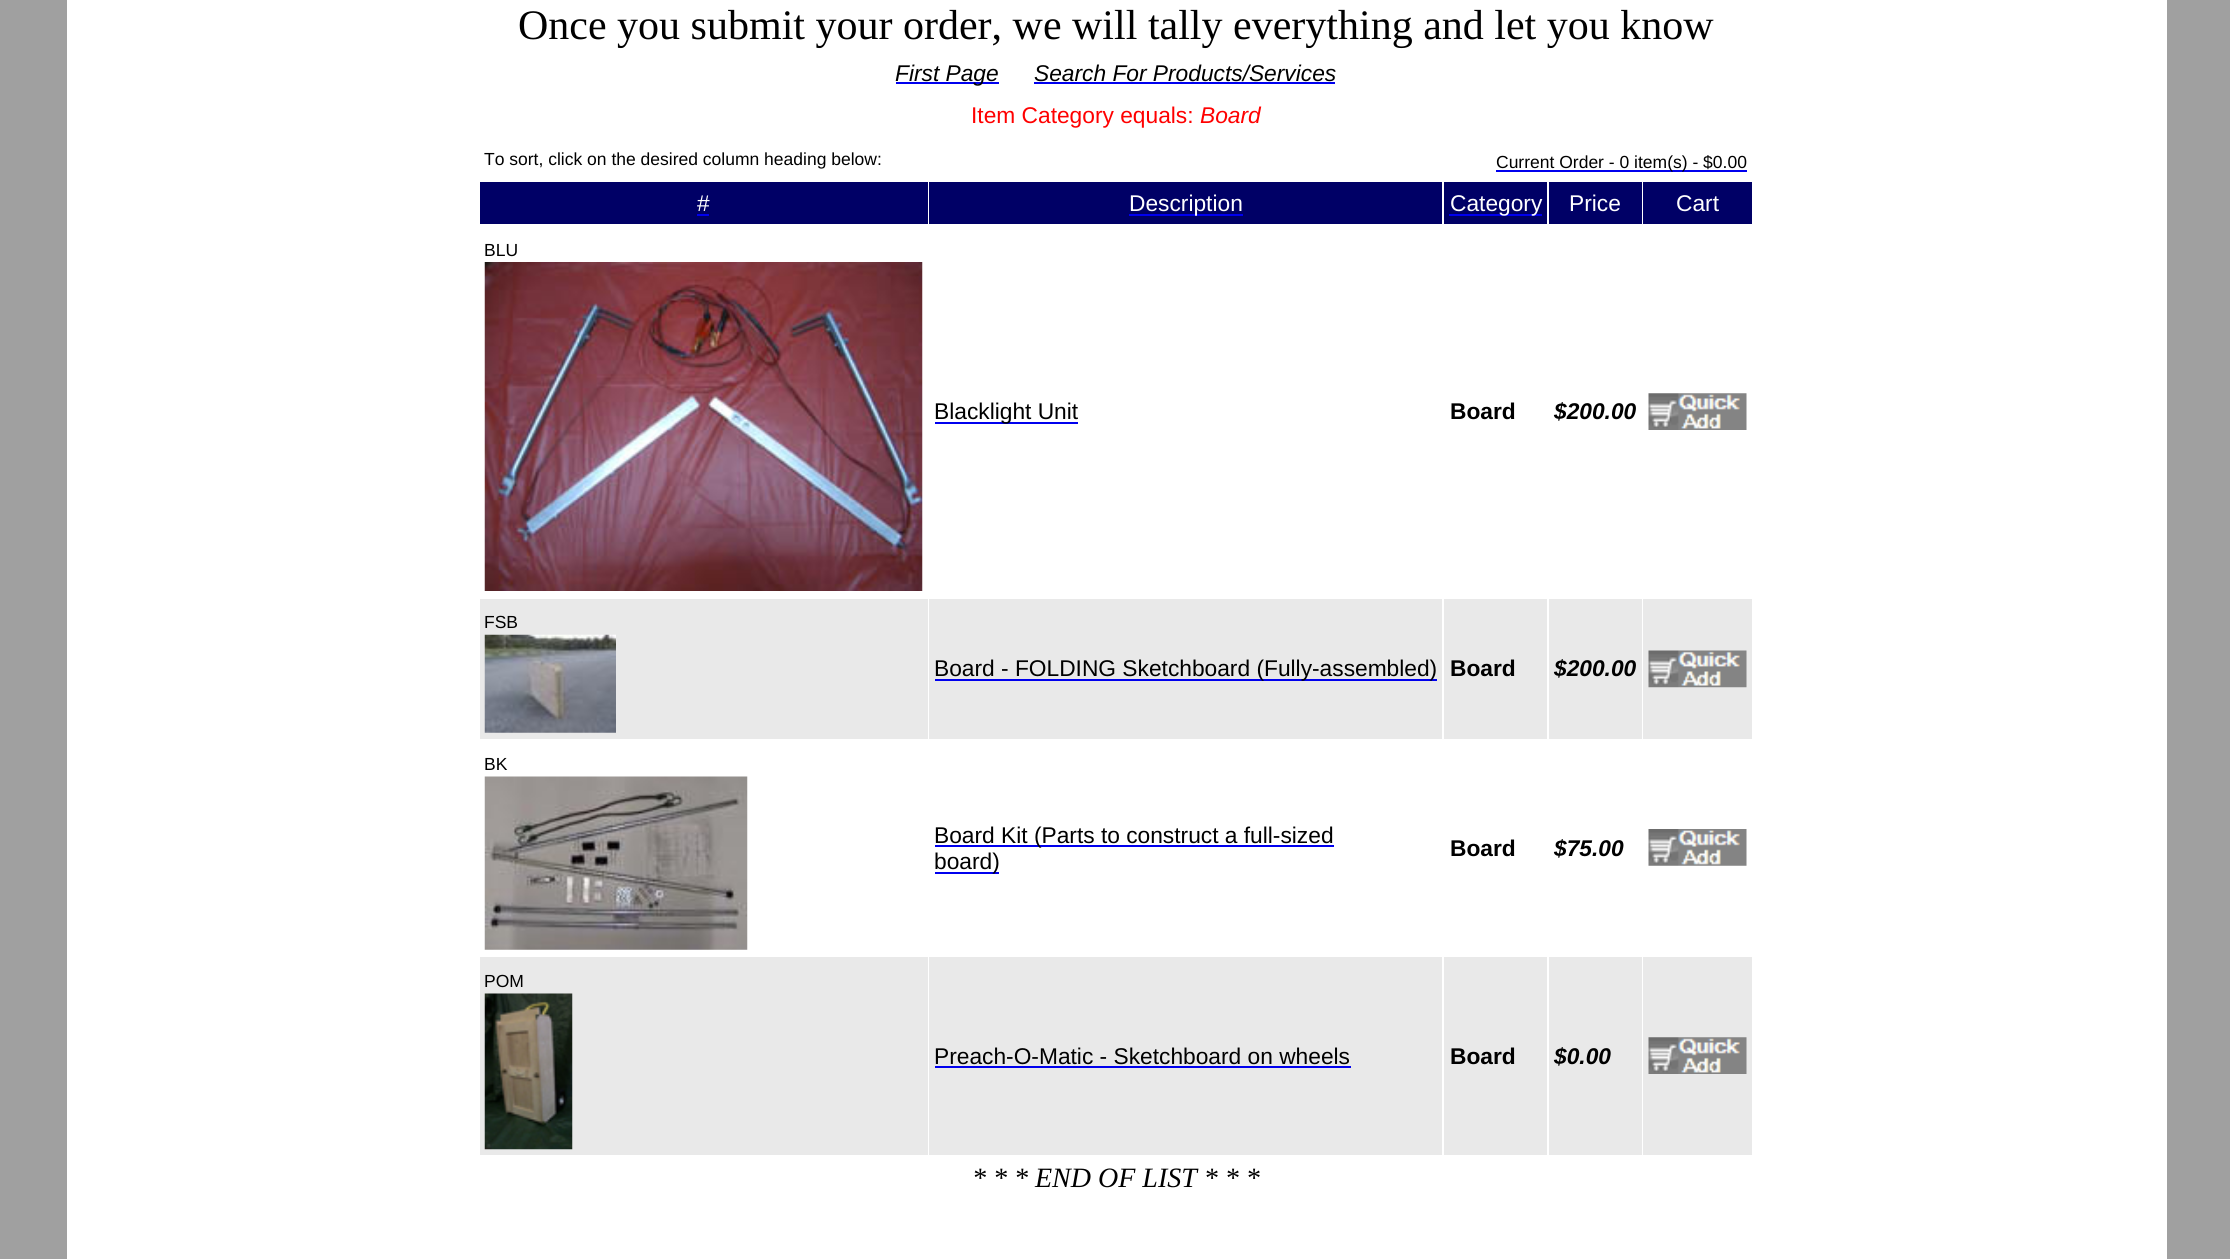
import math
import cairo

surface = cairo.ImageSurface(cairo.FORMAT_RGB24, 2230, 1259)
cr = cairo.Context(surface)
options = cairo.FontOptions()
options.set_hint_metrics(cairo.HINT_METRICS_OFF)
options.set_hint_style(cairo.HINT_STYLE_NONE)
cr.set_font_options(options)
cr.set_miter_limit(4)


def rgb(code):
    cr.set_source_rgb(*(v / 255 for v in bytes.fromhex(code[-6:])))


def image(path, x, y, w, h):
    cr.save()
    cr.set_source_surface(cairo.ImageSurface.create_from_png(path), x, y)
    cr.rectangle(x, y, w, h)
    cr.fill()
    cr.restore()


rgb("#a0a0a0")
cr.paint()
for x, y, w, h, color in [
    (67, 0, 2100, 1259, "#ffffff"),
    (896, 82, 103, 2, "#0000ee"),
    (1034, 82, 301, 2, "#0000ee"),
    (1496, 170, 251, 2, "#0000ee"),
    (480, 182, 448, 42, "#000066"),
    (697, 214, 12, 2, "#0000ee"),
    (929, 182, 513, 42, "#000066"),
    (1129, 214, 114, 2, "#0000ee"),
    (1444, 182, 103, 42, "#000066"),
    (1449, 214, 93, 2, "#0000ee"),
    (1549, 182, 93, 42, "#000066"),
    (1643, 182, 109, 42, "#000066"),
]:
    rgb(color)
    cr.rectangle(x, y, w, h)
    cr.fill()
image("img/1.png", 484, 262, 439, 329)
rgb("#0000ee")
cr.rectangle(935, 422, 143, 2)
cr.fill()
image("img/2.png", 1648, 393, 99, 37)
rgb("#e9e9e9")
cr.rectangle(480, 599, 448, 140)
cr.fill()
image("img/3.png", 484, 634, 132, 99)
cr.rectangle(1643, 599, 109, 140)
cr.fill()
image("img/4.png", 1648, 650, 99, 38)
for x, y, w, h, color in [
    (929, 599, 513, 140, "#e9e9e9"),
    (935, 679, 502, 2, "#0000ee"),
    (1444, 599, 103, 140, "#e9e9e9"),
    (1549, 599, 93, 140, "#e9e9e9"),
]:
    rgb(color)
    cr.rectangle(x, y, w, h)
    cr.fill()
image("img/5.png", 484, 776, 264, 174)
rgb("#0000ee")
cr.rectangle(935, 845, 399, 2)
cr.fill()
cr.rectangle(935, 872, 64, 2)
cr.fill()
image("img/6.png", 1648, 829, 99, 37)
rgb("#e9e9e9")
cr.rectangle(480, 957, 448, 198)
cr.fill()
image("img/7.png", 484, 993, 89, 157)
cr.rectangle(1643, 957, 109, 198)
cr.fill()
image("img/8.png", 1648, 1037, 99, 37)
for x, y, w, h, color in [
    (929, 957, 513, 198, "#e9e9e9"),
    (935, 1066, 416, 2, "#0000ee"),
    (1444, 957, 103, 198, "#e9e9e9"),
    (1549, 957, 93, 198, "#e9e9e9"),
]:
    rgb(color)
    cr.rectangle(x, y, w, h)
    cr.fill()
cr.select_font_face("Liberation Serif")
cr.set_font_size(42)
rgb("#000000")
cr.move_to(518, 39)
cr.show_text("Once you submit your order, we will tally everything and let you know")
cr.select_font_face("Liberation Sans", cairo.FONT_SLANT_ITALIC)
cr.set_font_size(22.75)
cr.move_to(895, 81)
cr.show_text("First Page")
cr.move_to(1034, 81)
cr.show_text("Search For Products/Services")
cr.select_font_face("Liberation Sans")
rgb("#ff0000")
cr.move_to(971, 123)
cr.show_text("Item Category equals:")
cr.select_font_face("Liberation Sans", cairo.FONT_SLANT_ITALIC)
cr.move_to(1200, 123)
cr.show_text("Board")
cr.select_font_face("Liberation Sans")
cr.set_font_size(17.5)
rgb("#000000")
cr.move_to(484, 165)
cr.show_text("To sort, click on the desired column heading below:")
cr.move_to(1496, 168)
cr.show_text("Current Order - 0 item(s) - $0.00")
cr.set_font_size(22.75)
rgb("#ffffff")
for x, y, s in [
    (697, 211, "#"),
    (1129, 211, "Description"),
    (1450, 211, "Category"),
    (1569, 211, "Price"),
    (1676, 211, "Cart"),
]:
    cr.move_to(x, y)
    cr.show_text(s)
cr.set_font_size(17.5)
rgb("#000000")
cr.move_to(484, 256)
cr.show_text("BLU")
cr.set_font_size(22.75)
cr.move_to(934, 419)
cr.show_text("Blacklight Unit")
cr.select_font_face("Liberation Sans", cairo.FONT_SLANT_NORMAL, cairo.FONT_WEIGHT_BOLD)
cr.move_to(1450, 419)
cr.show_text("Board")
cr.select_font_face("Liberation Sans", cairo.FONT_SLANT_ITALIC, cairo.FONT_WEIGHT_BOLD)
cr.move_to(1554, 419)
cr.show_text("$200.00")
cr.select_font_face("Liberation Sans")
cr.set_font_size(17.5)
cr.move_to(484, 628)
cr.show_text("FSB")
cr.set_font_size(22.75)
cr.move_to(934, 676)
cr.show_text("Board - FOLDING Sketchboard (Fully-assembled)")
cr.select_font_face("Liberation Sans", cairo.FONT_SLANT_NORMAL, cairo.FONT_WEIGHT_BOLD)
cr.move_to(1450, 676)
cr.show_text("Board")
cr.select_font_face("Liberation Sans", cairo.FONT_SLANT_ITALIC, cairo.FONT_WEIGHT_BOLD)
cr.move_to(1554, 676)
cr.show_text("$200.00")
cr.select_font_face("Liberation Sans")
cr.set_font_size(17.5)
cr.move_to(484, 770)
cr.show_text("BK")
cr.set_font_size(22.75)
cr.move_to(934, 843)
cr.show_text("Board Kit (Parts to construct a full-sized")
cr.move_to(934, 869)
cr.show_text("board)")
cr.select_font_face("Liberation Sans", cairo.FONT_SLANT_NORMAL, cairo.FONT_WEIGHT_BOLD)
cr.move_to(1450, 856)
cr.show_text("Board")
cr.select_font_face("Liberation Sans", cairo.FONT_SLANT_ITALIC, cairo.FONT_WEIGHT_BOLD)
cr.move_to(1554, 856)
cr.show_text("$75.00")
cr.select_font_face("Liberation Sans")
cr.set_font_size(17.5)
cr.move_to(484, 987)
cr.show_text("POM")
cr.set_font_size(22.75)
cr.move_to(934, 1064)
cr.show_text("Preach-O-Matic - Sketchboard on wheels")
cr.select_font_face("Liberation Sans", cairo.FONT_SLANT_NORMAL, cairo.FONT_WEIGHT_BOLD)
cr.move_to(1450, 1064)
cr.show_text("Board")
cr.select_font_face("Liberation Sans", cairo.FONT_SLANT_ITALIC, cairo.FONT_WEIGHT_BOLD)
cr.move_to(1554, 1064)
cr.show_text("$0.00")
cr.select_font_face("Liberation Serif", cairo.FONT_SLANT_ITALIC)
cr.set_font_size(28)
cr.move_to(972, 1187)
cr.show_text("* * * END OF LIST * * *")
surface.write_to_png("page.png")
